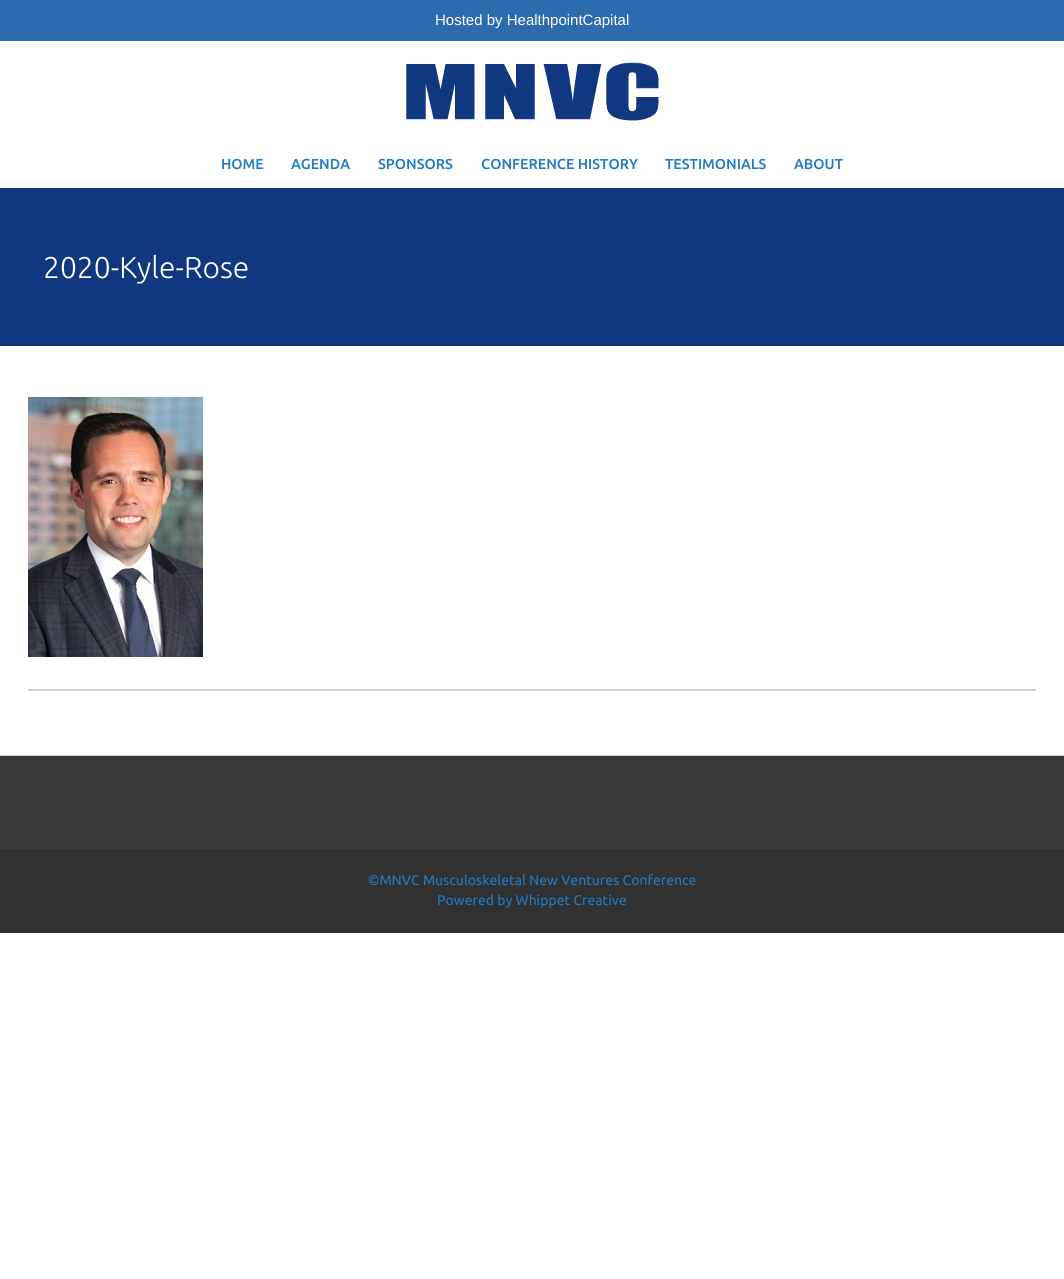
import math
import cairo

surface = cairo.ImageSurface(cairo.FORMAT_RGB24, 1064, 1279)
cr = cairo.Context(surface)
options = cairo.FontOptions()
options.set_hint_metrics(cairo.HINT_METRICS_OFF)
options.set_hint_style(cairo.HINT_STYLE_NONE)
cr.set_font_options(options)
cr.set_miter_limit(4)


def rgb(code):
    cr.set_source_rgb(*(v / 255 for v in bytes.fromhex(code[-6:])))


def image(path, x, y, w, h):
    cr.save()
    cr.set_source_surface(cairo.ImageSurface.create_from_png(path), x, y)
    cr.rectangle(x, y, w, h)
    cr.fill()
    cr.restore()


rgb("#ffffff")
cr.paint()
rgb("#2c6bae")
cr.rectangle(0, 0, 1064, 41)
cr.fill()
image("img/1.png", 406, 62, 253, 59)
rgb("#123781")
cr.rectangle(0, 188, 1064, 158)
cr.fill()
image("img/2.png", 28, 397, 175, 260)
for x, y, w, h, color in [
    (28, 689, 1008, 2, "#d2d2d2"),
    (0, 756, 1064, 93, "#393939"),
    (0, 755, 1064, 1, "#d3d3d3"),
    (0, 849, 1064, 84, "#313131"),
]:
    rgb(color)
    cr.rectangle(x, y, w, h)
    cr.fill()
cr.select_font_face("Liberation Sans")
cr.set_font_size(15)
rgb("#ffffff")
cr.move_to(435, 25)
cr.show_text("Hosted by HealthpointCapital")
cr.select_font_face("Ubuntu Medium")
cr.set_font_size(14.4)
rgb("#207ac5")
for x, y, s in [
    (221, 169, "HOME"),
    (291, 169, "AGENDA"),
    (378, 169, "SPONSORS"),
    (481, 169, "CONFERENCE HISTORY"),
    (665, 169, "TESTIMONIALS"),
    (794, 169, "ABOUT"),
]:
    cr.move_to(x, y)
    cr.show_text(s)
cr.select_font_face("Ubuntu Light")
cr.set_font_size(30)
rgb("#ffffff")
cr.move_to(43, 278)
cr.show_text("2020-Kyle-Rose")
cr.select_font_face("Ubuntu")
cr.set_font_size(14)
rgb("#207ac5")
cr.move_to(368, 885)
cr.show_text("©MNVC Musculoskeletal New Ventures Conference")
cr.move_to(437, 905)
cr.show_text("Powered by Whippet Creative")
surface.write_to_png("page.png")
